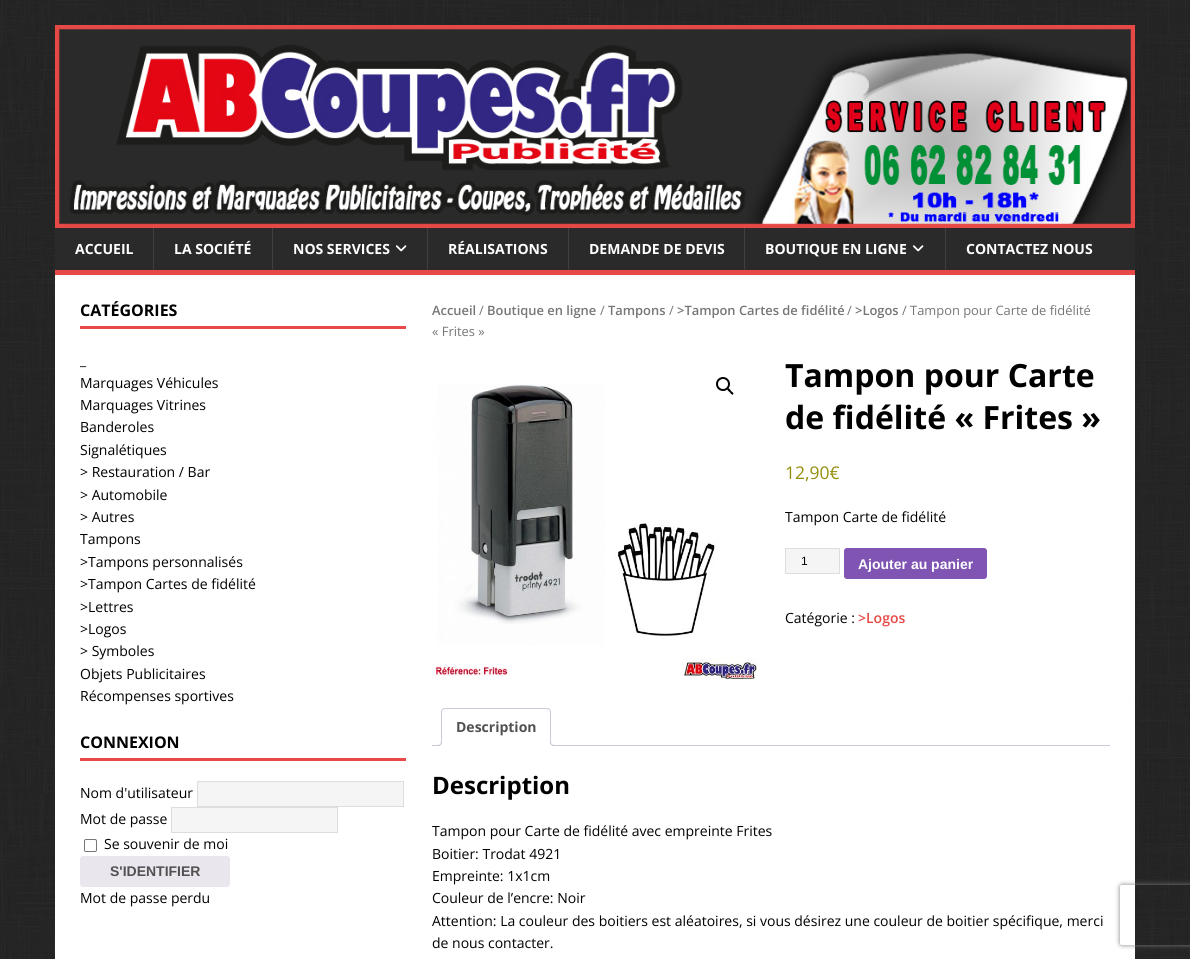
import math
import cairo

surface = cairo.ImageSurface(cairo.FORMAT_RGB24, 1190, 959)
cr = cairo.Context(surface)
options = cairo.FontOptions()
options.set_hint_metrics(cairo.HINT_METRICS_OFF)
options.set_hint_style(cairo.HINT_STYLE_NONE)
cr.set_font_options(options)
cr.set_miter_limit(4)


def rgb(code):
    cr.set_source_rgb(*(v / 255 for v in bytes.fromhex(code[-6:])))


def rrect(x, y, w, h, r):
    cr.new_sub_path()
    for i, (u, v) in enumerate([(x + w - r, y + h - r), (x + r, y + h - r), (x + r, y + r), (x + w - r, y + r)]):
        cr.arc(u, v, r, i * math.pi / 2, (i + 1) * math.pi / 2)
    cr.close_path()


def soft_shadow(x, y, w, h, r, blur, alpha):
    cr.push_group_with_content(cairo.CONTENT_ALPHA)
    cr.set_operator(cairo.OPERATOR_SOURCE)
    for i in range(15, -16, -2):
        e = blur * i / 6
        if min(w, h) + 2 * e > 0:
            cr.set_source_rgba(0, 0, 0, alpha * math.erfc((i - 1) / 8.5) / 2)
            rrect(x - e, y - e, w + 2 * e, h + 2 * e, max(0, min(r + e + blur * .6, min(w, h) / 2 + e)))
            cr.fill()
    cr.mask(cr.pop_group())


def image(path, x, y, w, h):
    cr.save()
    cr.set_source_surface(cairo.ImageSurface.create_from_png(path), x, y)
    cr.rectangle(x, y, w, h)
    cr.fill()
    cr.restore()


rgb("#ffffff")
cr.paint()
image("img/1.png", 0, 0, 1190, 959)
image("img/2.png", 55, 25, 1080, 203)
for x, y, w, h, color in [
    (55, 228, 1080, 42, "#2a2a2a"),
    (55, 270, 1080, 5, "#e64946"),
    (153, 228, 1, 42, "#3f3f3f"),
    (272, 228, 1, 42, "#3f3f3f"),
]:
    rgb(color)
    cr.rectangle(x, y, w, h)
    cr.fill()
image("img/3.png", 395, 245, 12, 7)
for x, y, w, h, color in [
    (427, 228, 1, 42, "#3f3f3f"),
    (568, 228, 1, 42, "#3f3f3f"),
    (744, 228, 1, 42, "#3f3f3f"),
]:
    rgb(color)
    cr.rectangle(x, y, w, h)
    cr.fill()
image("img/3.png", 912, 245, 12, 7)
for x, y, w, h, color in [
    (945, 228, 1, 42, "#3f3f3f"),
    (55, 275, 1080, 684, "#ffffff"),
    (80, 326, 326, 3, "#e64946"),
    (80, 758, 326, 3, "#e64946"),
]:
    rgb(color)
    cr.rectangle(x, y, w, h)
    cr.fill()
rgb("#f5f5f5")
cr.rectangle(197.5, 781.5, 206, 25)
cr.fill_preserve()
rgb("#dddddd")
cr.set_line_width(1)
cr.stroke()
rgb("#f5f5f5")
cr.rectangle(171.5, 807.5, 166, 25)
cr.fill_preserve()
rgb("#dddddd")
cr.stroke()
rrect(84.5, 839.5, 12, 12, 1.5)
rgb("#767676")
cr.stroke()
rgb("#e9e6ed")
rrect(80, 856, 150, 31, 3)
cr.fill()
image("img/4.png", 432, 384, 325, 296)
cr.arc(723, 384, 6, 0, 2 * math.pi)
rgb("#000000")
cr.set_line_width(2)
cr.stroke()
cr.new_path()
cr.move_to(727.5, 388.5)
cr.curve_to(729, 387.5, 730.5, 390, 731, 391)
cr.curve_to(731.5, 391.5, 734.5, 393, 733, 394.5)
cr.curve_to(732, 395.5, 730.5, 393, 729.5, 392)
cr.curve_to(729, 391.5, 726.5, 390, 727.5, 388.5)
cr.close_path()
cr.fill()
rgb("#f5f5f5")
cr.rectangle(785.5, 548.5, 54, 25)
cr.fill_preserve()
rgb("#dddddd")
cr.set_line_width(1)
cr.stroke()
rgb("#7f54b3")
rrect(844, 548, 143, 31, 3)
cr.fill()
rgb("#cfc8d8")
cr.rectangle(432, 745, 678, 1)
cr.fill()
rgb("#ffffff")
cr.new_path()
cr.move_to(445, 708)
cr.line_to(547, 708)
cr.curve_to(549, 708, 551, 710, 551, 712)
cr.line_to(551, 746)
cr.line_to(441, 746)
cr.line_to(441, 712)
cr.curve_to(441, 710, 443, 708, 445, 708)
cr.close_path()
cr.fill()
rgb("#cfc8d8")
cr.new_path()
cr.move_to(445, 708)
cr.line_to(442, 709)
cr.line_to(443, 710)
cr.line_to(445, 709)
cr.line_to(547, 709)
cr.line_to(549, 710)
cr.line_to(550, 709)
cr.line_to(547, 708)
cr.close_path()
cr.fill()
cr.new_path()
cr.move_to(551, 746)
cr.line_to(551, 712)
cr.curve_to(551, 711, 550.5, 710, 550, 709)
cr.line_to(549, 710)
cr.curve_to(550, 710, 550, 711, 550, 712)
cr.line_to(550, 745)
cr.close_path()
cr.fill()
rgb("#ffffff")
cr.new_path()
cr.move_to(551, 746)
cr.line_to(550, 745)
cr.line_to(442, 745)
cr.line_to(441, 746)
cr.close_path()
cr.fill()
rgb("#cfc8d8")
cr.new_path()
cr.move_to(441, 746)
cr.line_to(442, 745)
cr.line_to(442, 712)
cr.curve_to(442, 711, 442, 710, 443, 710)
cr.line_to(442, 709)
cr.curve_to(441.5, 710, 441, 711, 441, 712)
cr.close_path()
cr.fill()
cr.save()
cr.rectangle(432, 708, 678, 38)
cr.clip()
rgb("#ffffff")
cr.new_path()
cr.move_to(439, 746)
cr.line_to(439, 748)
cr.curve_to(442.5, 748, 444, 746.5, 444, 743)
cr.line_to(442, 743)
cr.curve_to(441.5, 744.5, 440.5, 745.5, 439, 746)
cr.close_path()
cr.fill()
cr.restore()
cr.set_fill_rule(cairo.FILL_RULE_EVEN_ODD)
cr.new_path()
cr.move_to(437, 741)
cr.line_to(442, 741)
cr.curve_to(442, 744.5, 440.5, 746, 437, 746)
cr.close_path()
cr.move_to(437, 741)
cr.line_to(441, 741)
cr.curve_to(441, 744, 440, 745, 437, 745)
cr.close_path()
cr.fill()
cr.save()
cr.set_fill_rule(cairo.FILL_RULE_WINDING)
cr.rectangle(432, 708, 678, 38)
cr.clip()
rgb("#ffffff")
cr.new_path()
cr.move_to(548, 743)
cr.curve_to(548, 746.5, 549.5, 748, 553, 748)
cr.line_to(553, 746)
cr.curve_to(551.5, 745.5, 550.5, 744.5, 550, 743)
cr.close_path()
cr.fill()
cr.restore()
cr.new_path()
cr.move_to(550, 741)
cr.line_to(555, 741)
cr.line_to(555, 746)
cr.curve_to(552.5, 746, 550, 745, 550, 742)
cr.close_path()
cr.move_to(551, 741)
cr.line_to(555, 741)
cr.line_to(555, 745)
cr.curve_to(553, 745, 551, 744.5, 551, 742)
cr.close_path()
cr.fill()
cr.save()
cr.new_path()
cr.move_to(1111, 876)
cr.line_to(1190, 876)
cr.line_to(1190, 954)
cr.line_to(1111, 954)
cr.close_path()
cr.move_to(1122, 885)
cr.line_to(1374, 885)
cr.curve_to(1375, 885, 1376, 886, 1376, 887)
cr.line_to(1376, 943)
cr.curve_to(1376, 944, 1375, 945, 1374, 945)
cr.line_to(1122, 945)
cr.curve_to(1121, 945, 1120, 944, 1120, 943)
cr.line_to(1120, 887)
cr.curve_to(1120, 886, 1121, 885, 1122, 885)
cr.close_path()
cr.clip()
rgb("#808080")
soft_shadow(1120, 885, 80, 60, 2, 2.5, 1)
cr.restore()
cr.select_font_face("Open Sans", cairo.FONT_SLANT_NORMAL, cairo.FONT_WEIGHT_BOLD)
cr.set_font_size(14)
rgb("#ffffff")
for x, y, s in [
    (75, 254, "ACCUEIL"),
    (174, 254, "LA SOCIÉTÉ"),
    (293, 254, "NOS SERVICES"),
    (448, 254, "RÉALISATIONS"),
    (589, 254, "DEMANDE DE DEVIS"),
    (765, 254, "BOUTIQUE EN LIGNE"),
    (966, 254, "CONTACTEZ NOUS"),
]:
    cr.move_to(x, y)
    cr.show_text(s)
cr.set_font_size(16)
rgb("#000000")
cr.move_to(80, 316)
cr.show_text("CATÉGORIES")
cr.select_font_face("Open Sans")
cr.set_font_size(14)
for x, y, s in [
    (80, 365, "_"),
    (80, 388, "Marquages Véhicules"),
    (80, 410, "Marquages Vitrines"),
    (80, 432, "Banderoles"),
    (80, 455, "Signalétiques"),
    (80, 477, "> Restauration / Bar"),
    (80, 500, "> Automobile"),
    (80, 522, "> Autres"),
    (80, 544, "Tampons"),
    (80, 567, ">Tampons personnalisés"),
    (80, 589, ">Tampon Cartes de fidélité"),
    (80, 612, ">Lettres"),
    (80, 634, ">Logos"),
    (80, 656, "> Symboles"),
    (80, 679, "Objets Publicitaires"),
    (80, 701, "Récompenses sportives"),
]:
    cr.move_to(x, y)
    cr.show_text(s)
cr.select_font_face("Open Sans", cairo.FONT_SLANT_NORMAL, cairo.FONT_WEIGHT_BOLD)
cr.set_font_size(16)
cr.move_to(80, 748)
cr.show_text("CONNEXION")
cr.select_font_face("Open Sans")
cr.set_font_size(14)
for x, y, s in [
    (80, 798, "Nom d'utilisateur"),
    (80, 824, "Mot de passe"),
    (104, 849, "Se souvenir de moi"),
]:
    cr.move_to(x, y)
    cr.show_text(s)
cr.select_font_face("Liberation Sans", cairo.FONT_SLANT_NORMAL, cairo.FONT_WEIGHT_BOLD)
rgb("#515151")
cr.move_to(110, 876)
cr.show_text("S'IDENTIFIER")
cr.select_font_face("Open Sans")
rgb("#000000")
cr.move_to(80, 903)
cr.show_text("Mot de passe perdu")
cr.select_font_face("Open Sans SemiBold")
cr.set_font_size(12.9)
rgb("#767676")
cr.move_to(432, 315)
cr.show_text("Accueil")
cr.select_font_face("Open Sans")
cr.move_to(479, 315)
cr.show_text("/")
cr.select_font_face("Open Sans SemiBold")
cr.move_to(487, 315)
cr.show_text("Boutique en ligne")
cr.select_font_face("Open Sans")
cr.move_to(600, 315)
cr.show_text("/")
cr.select_font_face("Open Sans SemiBold")
cr.move_to(608, 315)
cr.show_text("Tampons")
cr.select_font_face("Open Sans")
cr.move_to(669, 315)
cr.show_text("/")
cr.select_font_face("Open Sans SemiBold")
cr.move_to(677, 315)
cr.show_text(">Tampon Cartes de fidélité")
cr.select_font_face("Open Sans")
cr.move_to(847, 315)
cr.show_text("/")
cr.select_font_face("Open Sans SemiBold")
cr.move_to(855, 315)
cr.show_text(">Logos")
cr.select_font_face("Open Sans")
cr.move_to(902, 315)
cr.show_text("/ Tampon pour Carte de fidélité")
cr.move_to(432, 336)
cr.show_text("« Frites »")
cr.select_font_face("Open Sans", cairo.FONT_SLANT_NORMAL, cairo.FONT_WEIGHT_BOLD)
cr.set_font_size(32)
rgb("#000000")
cr.move_to(785, 387)
cr.show_text("Tampon pour Carte")
cr.move_to(785, 429)
cr.show_text("de fidélité « Frites »")
cr.select_font_face("Open Sans")
cr.set_font_size(17.5)
rgb("#958e09")
cr.move_to(785, 479)
cr.show_text("12,90€")
cr.set_font_size(14)
rgb("#000000")
cr.move_to(785, 522)
cr.show_text("Tampon Carte de fidélité")
cr.select_font_face("Liberation Sans")
cr.set_font_size(12)
cr.move_to(801, 565)
cr.show_text("1")
cr.select_font_face("Liberation Sans", cairo.FONT_SLANT_NORMAL, cairo.FONT_WEIGHT_BOLD)
cr.set_font_size(14)
rgb("#ffffff")
cr.move_to(858, 569)
cr.show_text("Ajouter au panier")
cr.select_font_face("Open Sans")
rgb("#000000")
cr.move_to(785, 623)
cr.show_text("Catégorie :")
cr.select_font_face("Open Sans SemiBold")
rgb("#e64946")
cr.move_to(858, 623)
cr.show_text(">Logos")
cr.select_font_face("Open Sans", cairo.FONT_SLANT_NORMAL, cairo.FONT_WEIGHT_BOLD)
rgb("#515151")
cr.move_to(456, 732)
cr.show_text("Description")
cr.set_font_size(24)
rgb("#000000")
cr.move_to(432, 794)
cr.show_text("Description")
cr.select_font_face("Open Sans")
cr.set_font_size(14)
for x, y, s in [
    (432, 836, "Tampon pour Carte de fidélité avec empreinte Frites"),
    (432, 859, "Boitier: Trodat 4921"),
    (432, 881, "Empreinte: 1x1cm"),
    (432, 903, "Couleur de l’encre: Noir"),
    (432, 926, "Attention: La couleur des boitiers est aléatoires, si vous désirez une couleur de boitier spécifique, merci"),
    (432, 948, "de nous contacter."),
]:
    cr.move_to(x, y)
    cr.show_text(s)
surface.write_to_png("page.png")
